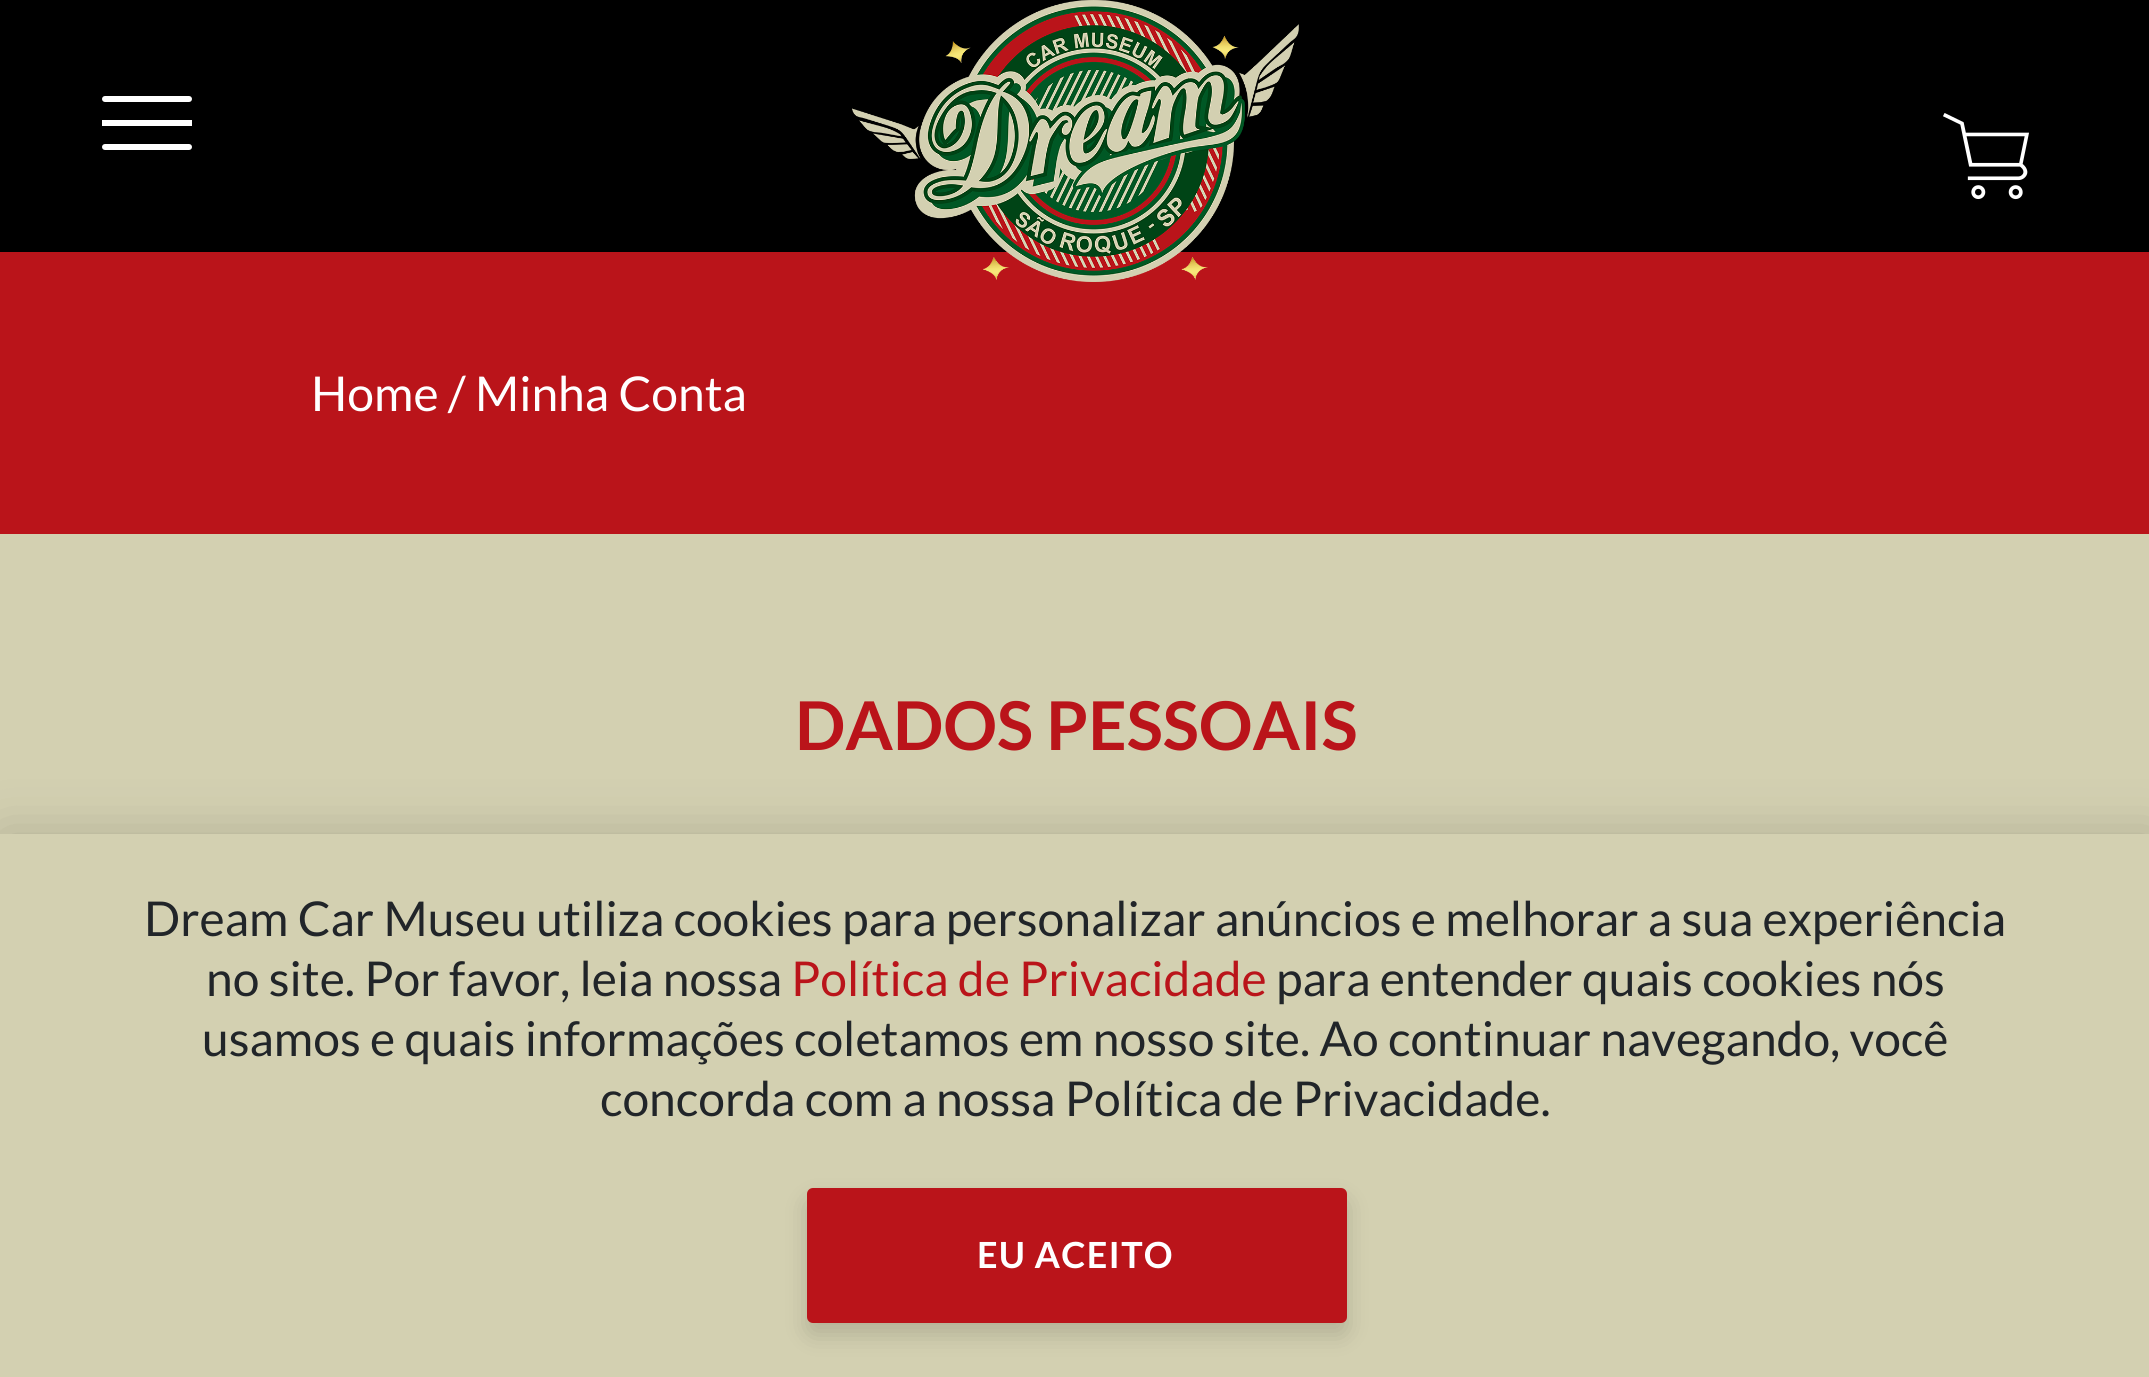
import math
import cairo

surface = cairo.ImageSurface(cairo.FORMAT_RGB24, 2149, 1377)
cr = cairo.Context(surface)
options = cairo.FontOptions()
options.set_hint_metrics(cairo.HINT_METRICS_OFF)
options.set_hint_style(cairo.HINT_STYLE_NONE)
cr.set_font_options(options)
cr.set_miter_limit(4)


def rgb(code):
    cr.set_source_rgb(*(v / 255 for v in bytes.fromhex(code[-6:])))


def tracked(x, y, s, letter, word):
    cr.move_to(x, y)
    for ch in s:
        cr.show_text(ch)
        cr.rel_move_to(letter + word * (ch == ' '), 0)


def rrect(x, y, w, h, r):
    cr.new_sub_path()
    for i, (u, v) in enumerate([(x + w - r, y + h - r), (x + r, y + h - r), (x + r, y + r), (x + w - r, y + r)]):
        cr.arc(u, v, r, i * math.pi / 2, (i + 1) * math.pi / 2)
    cr.close_path()


def soft_shadow(x, y, w, h, r, blur, alpha):
    cr.push_group_with_content(cairo.CONTENT_ALPHA)
    cr.set_operator(cairo.OPERATOR_SOURCE)
    for i in range(15, -16, -2):
        e = blur * i / 6
        if min(w, h) + 2 * e > 0:
            cr.set_source_rgba(0, 0, 0, alpha * math.erfc((i - 1) / 8.5) / 2)
            rrect(x - e, y - e, w + 2 * e, h + 2 * e, max(0, min(r + e + blur * .6, min(w, h) / 2 + e)))
            cr.fill()
    cr.mask(cr.pop_group())


def image(path, x, y, w, h):
    cr.save()
    cr.set_source_surface(cairo.ImageSurface.create_from_png(path), x, y)
    cr.rectangle(x, y, w, h)
    cr.fill()
    cr.restore()


rgb("#d3d0b1")
cr.paint()
rgb("#000000")
cr.rectangle(0, 0, 2149, 252)
cr.fill()
rgb("#ffffff")
cr.rectangle(102, 120, 90, 6)
cr.fill()
rrect(102, 96, 90, 6, 3)
cr.fill()
rrect(102, 144, 90, 6, 3)
cr.fill()
rgb("#ba141a")
cr.rectangle(0, 252, 2149, 282)
cr.fill()
image("img/1.png", 852, 0, 447, 282)
image("img/2.png", 1943, 113, 86, 87)
rgb("#000000")
soft_shadow(3, 837, 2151, 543, 0, 27, 0.19)
rgb("#d3d0b1")
cr.rectangle(0, 834, 2149, 543)
cr.fill()
rgb("#000000")
soft_shadow(807, 1200, 540, 135, 6, 12, 0.15)
rgb("#ba141a")
rrect(808.5, 1189.5, 537, 132, 4.5)
cr.fill_preserve()
cr.set_line_width(3)
cr.stroke()
cr.select_font_face("Lato")
cr.set_font_size(48)
rgb("#ffffff")
cr.move_to(311, 411)
cr.show_text("Home / Minha Conta")
cr.select_font_face("Lato", cairo.FONT_SLANT_NORMAL, cairo.FONT_WEIGHT_BOLD)
cr.set_font_size(67.25)
rgb("#ba141a")
cr.move_to(795, 750)
cr.show_text("DADOS PESSOAIS")
cr.select_font_face("Lato")
cr.set_font_size(48)
rgb("#212529")
cr.move_to(144, 936)
cr.show_text("Dream Car Museu utiliza cookies para personalizar anúncios e melhorar a sua experiência")
cr.move_to(206, 996)
cr.show_text("no site. Por favor, leia nossa")
rgb("#ba141a")
cr.move_to(791, 996)
cr.show_text("Política de Privacidade")
rgb("#212529")
for x, y, s in [
    (1276, 996, "para entender quais cookies nós"),
    (202, 1056, "usamos e quais informações coletamos em nosso site. Ao continuar navegando, você"),
    (600, 1116, "concorda com a nossa Política de Privacidade."),
]:
    cr.move_to(x, y)
    cr.show_text(s)
cr.select_font_face("Lato", cairo.FONT_SLANT_NORMAL, cairo.FONT_WEIGHT_BOLD)
cr.set_font_size(36)
rgb("#ffffff")
tracked(977, 1268, "EU ACEITO", 1.25, 0)
surface.write_to_png("page.png")
